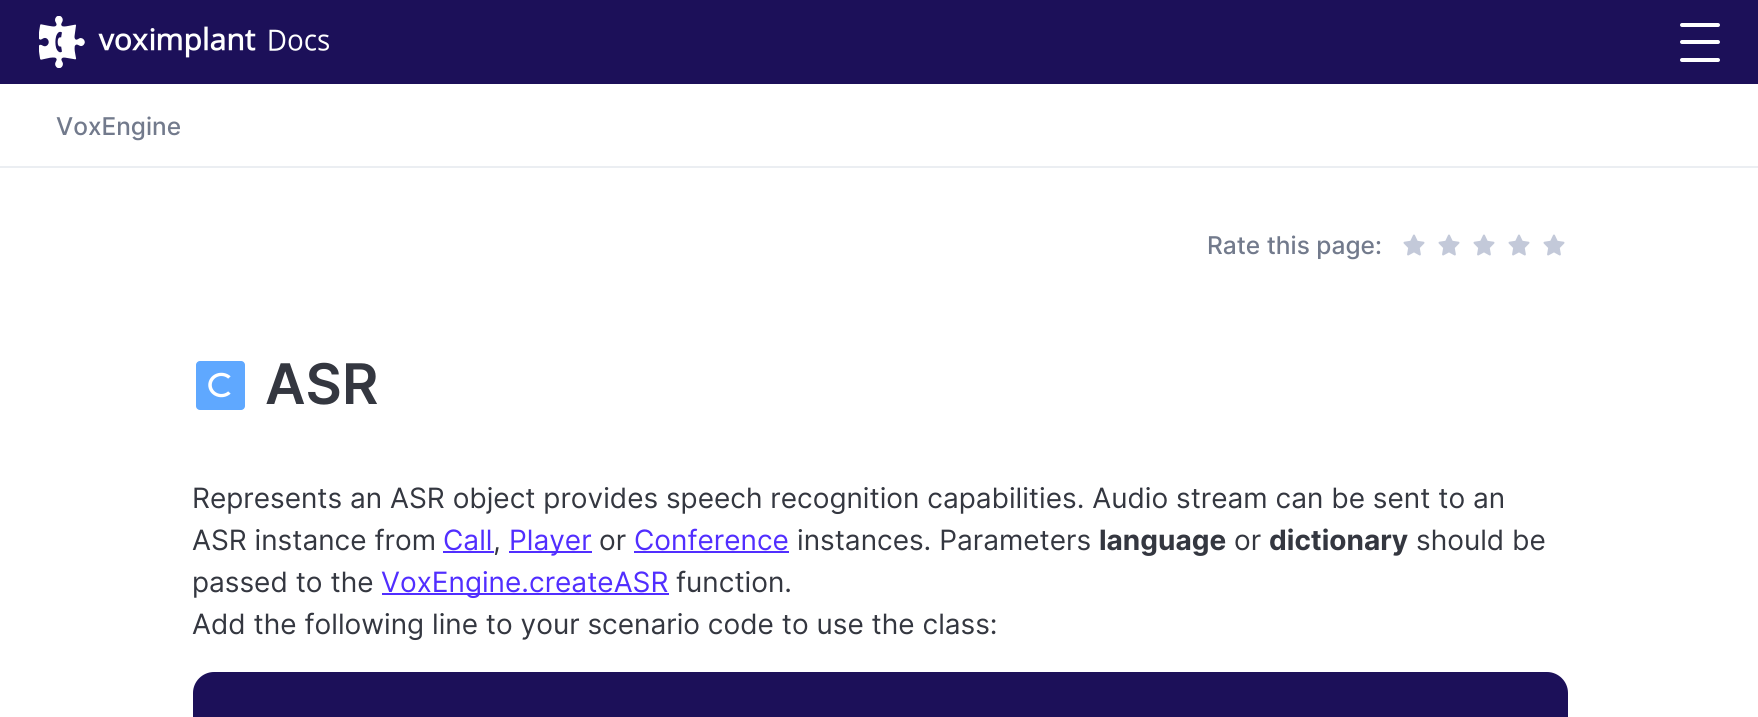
import math
import cairo

surface = cairo.ImageSurface(cairo.FORMAT_RGB24, 1758, 717)
cr = cairo.Context(surface)
options = cairo.FontOptions()
options.set_hint_metrics(cairo.HINT_METRICS_OFF)
options.set_hint_style(cairo.HINT_STYLE_NONE)
cr.set_font_options(options)
cr.set_miter_limit(4)


def rgb(code):
    cr.set_source_rgb(*(v / 255 for v in bytes.fromhex(code[-6:])))


def rrect(x, y, w, h, r):
    cr.new_sub_path()
    for i, (u, v) in enumerate([(x + w - r, y + h - r), (x + r, y + h - r), (x + r, y + r), (x + w - r, y + r)]):
        cr.arc(u, v, r, i * math.pi / 2, (i + 1) * math.pi / 2)
    cr.close_path()


def image(path, x, y, w, h):
    cr.save()
    cr.set_source_surface(cairo.ImageSurface.create_from_png(path), x, y)
    cr.rectangle(x, y, w, h)
    cr.fill()
    cr.restore()


rgb("#ffffff")
cr.paint()
rgb("#1c1059")
cr.rectangle(0, 0, 1758, 84)
cr.fill()
image("img/1.png", 39, 16, 290, 52)
rgb("#ffffff")
rrect(1680, 58, 40, 4, 2)
cr.fill()
rrect(1680, 23, 40, 4, 2)
cr.fill()
rrect(1680, 40, 40, 4, 2)
cr.fill()
rgb("#ebeef2")
cr.rectangle(0, 166, 1758, 2)
cr.fill()
image("img/2.png", 1403, 234, 22, 22)
image("img/2.png", 1438, 234, 22, 22)
image("img/2.png", 1473, 234, 22, 22)
image("img/2.png", 1508, 234, 22, 22)
image("img/2.png", 1543, 234, 22, 22)
image("img/3.png", 196, 361, 49, 49)
for x, y, w, h, color in [
    (443, 551, 51, 2, "#512eff"),
    (509, 551, 83, 2, "#512eff"),
    (634, 551, 155, 2, "#512eff"),
    (382, 593, 287, 2, "#512eff"),
]:
    rgb(color)
    cr.rectangle(x, y, w, h)
    cr.fill()
rgb("#1c1059")
cr.new_path()
cr.move_to(214, 672)
cr.line_to(1547, 672)
cr.curve_to(1558.5, 672, 1568, 681.5, 1568, 693)
cr.line_to(1568, 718)
cr.line_to(193, 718)
cr.line_to(193, 693)
cr.curve_to(193, 681.5, 202.5, 672, 214, 672)
cr.close_path()
cr.fill()
cr.select_font_face("Inter Medium")
cr.set_font_size(24.5)
rgb("#727a8c")
cr.move_to(56, 135)
cr.show_text("VoxEngine")
cr.move_to(1207, 254)
cr.show_text("Rate this page:")
cr.select_font_face("Inter SemiBold")
cr.set_font_size(56)
rgb("#343740")
cr.move_to(265, 404)
cr.show_text("ASR")
cr.select_font_face("Inter")
cr.set_font_size(28)
cr.move_to(192, 508)
cr.show_text("Represents an ASR object provides speech recognition capabilities. Audio stream can be sent to an")
cr.move_to(192, 550)
cr.show_text("ASR instance from")
rgb("#512eff")
cr.move_to(443, 550)
cr.show_text("Call")
rgb("#343740")
cr.move_to(493, 550)
cr.show_text(",")
rgb("#512eff")
cr.move_to(509, 550)
cr.show_text("Player")
rgb("#343740")
cr.move_to(599, 550)
cr.show_text("or")
rgb("#512eff")
cr.move_to(634, 550)
cr.show_text("Conference")
rgb("#343740")
cr.move_to(797, 550)
cr.show_text("instances. Parameters")
cr.select_font_face("Inter", cairo.FONT_SLANT_NORMAL, cairo.FONT_WEIGHT_BOLD)
cr.move_to(1099, 550)
cr.show_text("language")
cr.select_font_face("Inter")
cr.move_to(1234, 550)
cr.show_text("or")
cr.select_font_face("Inter", cairo.FONT_SLANT_NORMAL, cairo.FONT_WEIGHT_BOLD)
cr.move_to(1269, 550)
cr.show_text("dictionary")
cr.select_font_face("Inter")
cr.move_to(1416, 550)
cr.show_text("should be")
cr.move_to(192, 592)
cr.show_text("passed to the")
rgb("#512eff")
cr.move_to(381, 592)
cr.show_text("VoxEngine.createASR")
rgb("#343740")
cr.move_to(676, 592)
cr.show_text("function.")
cr.move_to(192, 634)
cr.show_text("Add the following line to your scenario code to use the class:")
surface.write_to_png("page.png")
